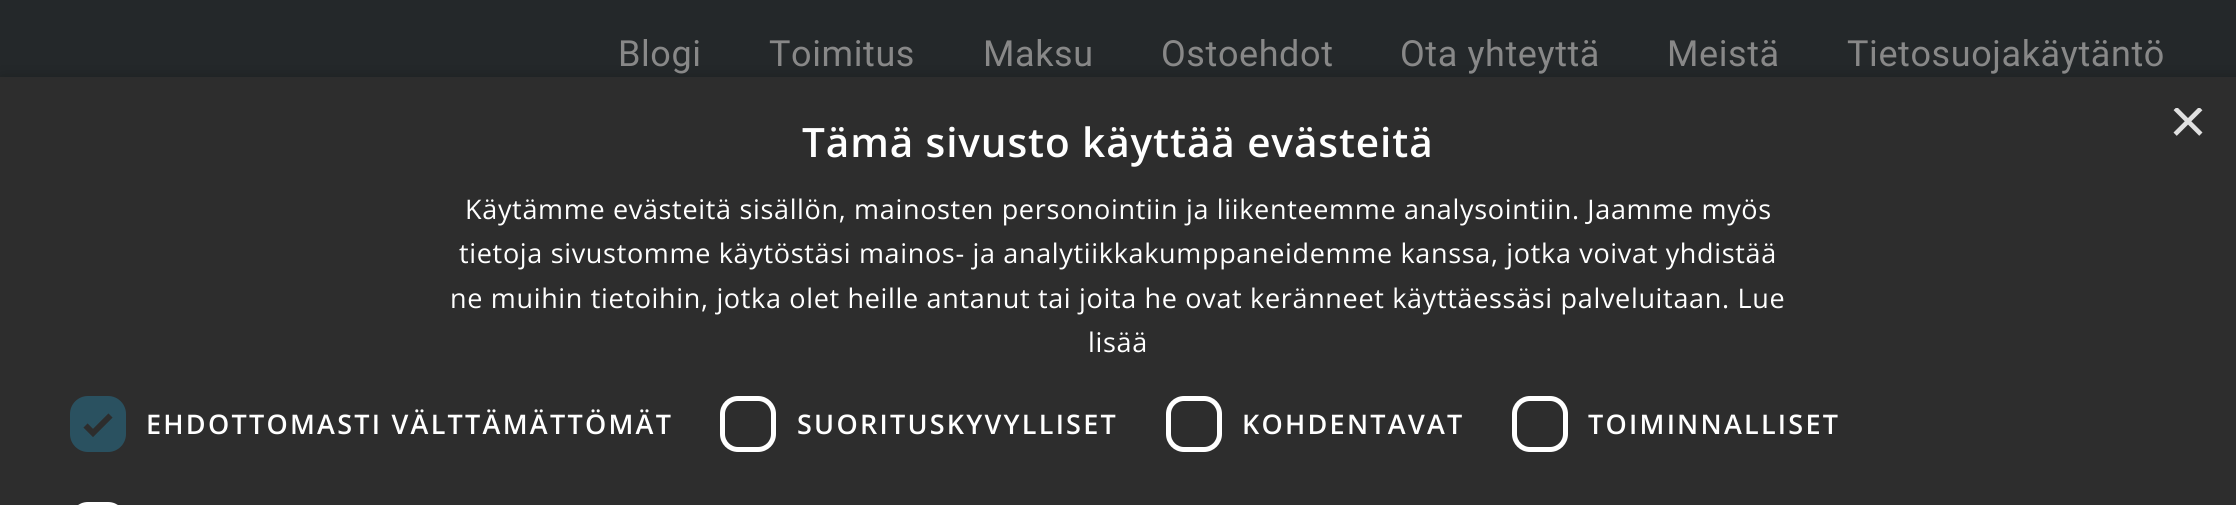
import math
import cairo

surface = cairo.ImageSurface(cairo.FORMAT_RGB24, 2236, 505)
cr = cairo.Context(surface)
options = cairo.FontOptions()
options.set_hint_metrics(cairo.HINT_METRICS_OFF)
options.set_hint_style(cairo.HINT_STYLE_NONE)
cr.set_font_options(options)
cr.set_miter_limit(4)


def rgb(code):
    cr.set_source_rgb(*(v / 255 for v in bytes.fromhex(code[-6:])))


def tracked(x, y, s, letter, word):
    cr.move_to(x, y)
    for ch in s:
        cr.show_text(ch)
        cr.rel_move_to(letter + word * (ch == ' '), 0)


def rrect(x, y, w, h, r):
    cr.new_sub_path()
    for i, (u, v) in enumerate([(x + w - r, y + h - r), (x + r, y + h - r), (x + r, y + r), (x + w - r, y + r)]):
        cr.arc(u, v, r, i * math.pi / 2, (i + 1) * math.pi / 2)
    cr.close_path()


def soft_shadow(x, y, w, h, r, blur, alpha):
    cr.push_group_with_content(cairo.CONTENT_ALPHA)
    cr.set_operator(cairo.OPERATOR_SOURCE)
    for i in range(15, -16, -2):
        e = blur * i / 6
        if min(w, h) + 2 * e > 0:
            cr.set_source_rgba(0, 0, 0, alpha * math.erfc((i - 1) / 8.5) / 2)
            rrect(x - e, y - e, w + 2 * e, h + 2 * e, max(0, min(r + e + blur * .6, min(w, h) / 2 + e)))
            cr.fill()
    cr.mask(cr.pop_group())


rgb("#24282a")
cr.paint()
rgb("#000000")
soft_shadow(2, 81, 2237, 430, 0, 9, 0.35)
rgb("#2d2d2d")
cr.rectangle(0, 77, 2236, 428)
cr.fill()
rgb("#2a5160")
rrect(70, 396, 56, 56, 18)
cr.fill()
cr.new_path()
cr.move_to(85.5, 425.5)
cr.line_to(93, 433)
cr.line_to(110.5, 415.5)
rgb("#2d2d2d")
cr.set_line_width(5.9)
cr.stroke()
rrect(722.5, 398.5, 51, 51, 15.5)
rgb("#ffffff")
cr.set_line_width(5)
cr.stroke()
rrect(1168.5, 398.5, 51, 51, 15.5)
cr.stroke()
rrect(1514.5, 398.5, 51, 51, 15.5)
cr.stroke()
rrect(72.5, 504.5, 51, 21, 15.5)
cr.stroke()
cr.select_font_face("Roboto")
cr.set_font_size(36)
rgb("#888888")
for x, y, s in [
    (618, 66, "Blogi"),
    (769, 66, "Toimitus"),
    (983, 66, "Maksu"),
    (1161, 66, "Ostoehdot"),
    (1400, 66, "Ota yhteyttä"),
    (1667, 66, "Meistä"),
    (1847, 66, "Tietosuojakäytäntö"),
]:
    tracked(x, y, s, 0.6, 0)
cr.save()
cr.rectangle(2169, 108, 34, 34)
cr.clip()
cr.select_font_face("Liberation Sans")
cr.set_font_size(65)
rgb("#e0e0e0")
cr.move_to(2169, 143)
cr.show_text("×")
cr.restore()
cr.select_font_face("Open Sans SemiBold")
cr.set_font_size(40.5)
rgb("#ffffff")
tracked(802, 157, "Tämä sivusto käyttää evästeitä", 0.9, 0)
cr.select_font_face("Open Sans")
cr.set_font_size(27)
for x, y, s in [
    (465, 219, "Käytämme evästeitä sisällön, mainosten personointiin ja liikenteemme analysointiin. Jaamme myös"),
    (459, 263, "tietoja sivustomme käytöstäsi mainos- ja analytiikkakumppaneidemme kanssa, jotka voivat yhdistää"),
    (450, 308, "ne muihin tietoihin, jotka olet heille antanut tai joita he ovat keränneet käyttäessäsi palveluitaan. Lue"),
    (1088, 352, "lisää"),
]:
    tracked(x, y, s, 0.67, 0)
cr.select_font_face("Open Sans SemiBold")
for x, y, s in [
    (146, 434, "EHDOTTOMASTI VÄLTTÄMÄTTÖMÄT"),
    (797, 434, "SUORITUSKYVYLLISET"),
    (1242, 434, "KOHDENTAVAT"),
    (1588, 434, "TOIMINNALLISET"),
]:
    tracked(x, y, s, 2.25, 0)
surface.write_to_png("page.png")
